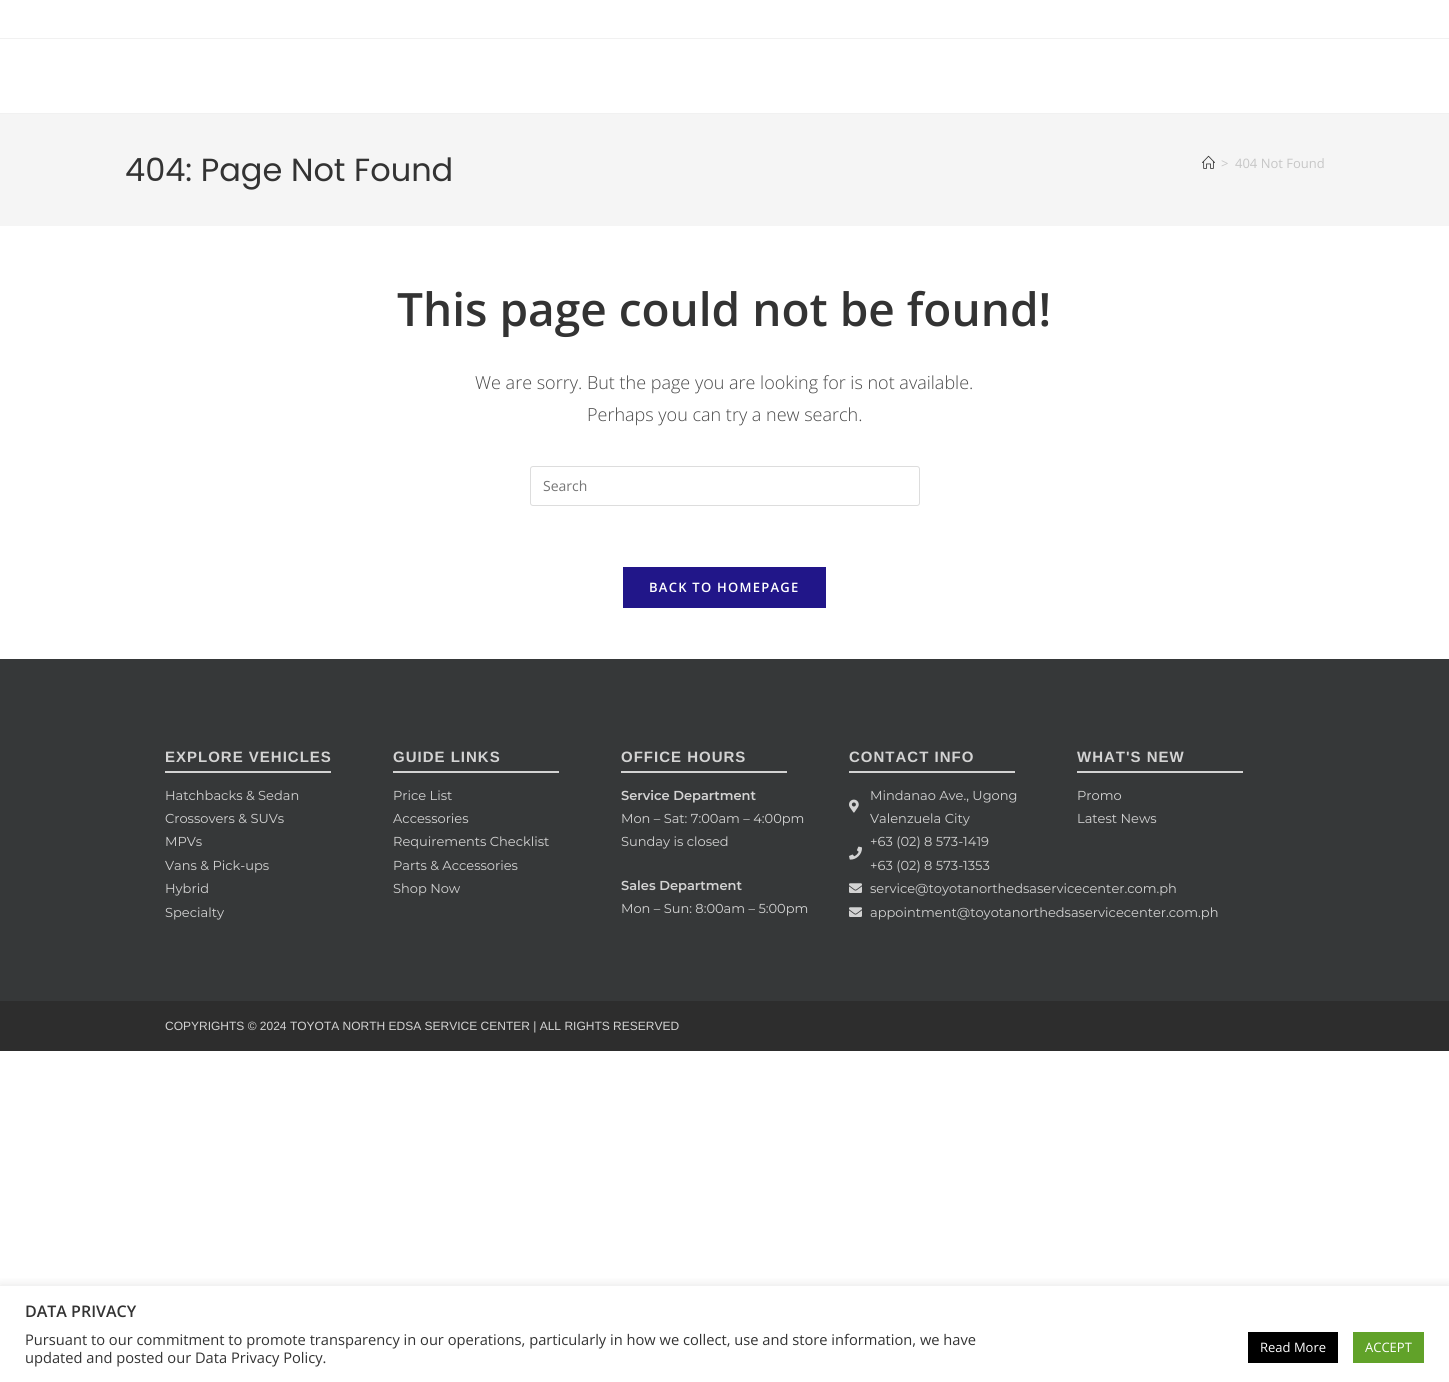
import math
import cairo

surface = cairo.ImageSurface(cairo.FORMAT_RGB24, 1449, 1382)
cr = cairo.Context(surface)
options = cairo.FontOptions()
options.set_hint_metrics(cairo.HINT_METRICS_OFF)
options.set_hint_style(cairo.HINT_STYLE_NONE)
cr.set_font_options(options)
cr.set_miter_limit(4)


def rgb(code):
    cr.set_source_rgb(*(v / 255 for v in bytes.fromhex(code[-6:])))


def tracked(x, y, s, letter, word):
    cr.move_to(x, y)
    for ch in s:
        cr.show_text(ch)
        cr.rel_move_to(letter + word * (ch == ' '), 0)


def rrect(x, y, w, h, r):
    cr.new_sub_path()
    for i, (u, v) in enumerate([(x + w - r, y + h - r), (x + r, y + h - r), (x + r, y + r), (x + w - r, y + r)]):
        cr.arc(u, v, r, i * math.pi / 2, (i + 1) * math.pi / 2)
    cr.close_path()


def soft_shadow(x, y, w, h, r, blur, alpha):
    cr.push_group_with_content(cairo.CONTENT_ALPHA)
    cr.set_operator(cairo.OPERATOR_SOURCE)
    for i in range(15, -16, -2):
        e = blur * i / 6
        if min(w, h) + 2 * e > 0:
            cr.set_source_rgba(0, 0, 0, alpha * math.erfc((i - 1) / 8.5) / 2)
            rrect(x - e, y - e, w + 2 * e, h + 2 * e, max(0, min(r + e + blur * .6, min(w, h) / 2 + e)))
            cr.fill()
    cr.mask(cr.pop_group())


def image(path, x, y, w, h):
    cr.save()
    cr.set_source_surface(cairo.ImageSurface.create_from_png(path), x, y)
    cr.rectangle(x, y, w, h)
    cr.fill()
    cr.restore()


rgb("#ffffff")
cr.paint()
for x, y, w, h, color in [
    (0, 38, 1449, 1, "#f1f1f1"),
    (0, 113, 1449, 1, "#f1f1f1"),
    (0, 114, 1449, 112, "#f5f5f5"),
]:
    rgb(color)
    cr.rectangle(x, y, w, h)
    cr.fill()
image("img/1.png", 1202, 155, 13, 14)
rrect(530.5, 466.5, 389, 39, 2.5)
rgb("#dddddd")
cr.set_line_width(1)
cr.stroke()
for x, y, w, h, color in [
    (623, 567, 203, 41, "#211689"),
    (0, 659, 1449, 342, "#363839"),
    (165, 771, 166, 2, "#d3d3d3"),
    (393, 771, 166, 2, "#d3d3d3"),
    (621, 771, 166, 2, "#d3d3d3"),
    (849, 771, 166, 2, "#d3d3d3"),
]:
    rgb(color)
    cr.rectangle(x, y, w, h)
    cr.fill()
image("img/2.png", 849, 799, 10, 14)
image("img/3.png", 849, 846, 13, 14)
image("img/4.png", 849, 883, 13, 10)
image("img/4.png", 849, 907, 13, 10)
cr.rectangle(1077, 771, 166, 2)
cr.fill()
rgb("#2d2d2d")
cr.rectangle(0, 1001, 1449, 50)
cr.fill()
cr.save()
cr.rectangle(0, 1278, 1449, 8)
cr.clip()
rgb("#acabab")
soft_shadow(0, 1285, 1449, 96, 0, 5, 0.3)
cr.restore()
rgb("#000000")
cr.rectangle(1248, 1332, 90, 31)
cr.fill()
rgb("#61a229")
cr.rectangle(1353, 1332, 71, 31)
cr.fill()
cr.select_font_face("Poppins")
cr.set_font_size(32)
rgb("#333333")
cr.move_to(125, 181)
cr.show_text("404: Page Not Found")
cr.select_font_face("Open Sans")
cr.set_font_size(13)
rgb("#c6c6c6")
cr.move_to(1221, 168)
cr.show_text(">")
cr.move_to(1235, 168)
cr.show_text("404 Not Found")
cr.select_font_face("Open Sans SemiBold")
cr.set_font_size(46)
rgb("#333333")
cr.move_to(397, 326)
cr.show_text("This page could not be found!")
cr.select_font_face("Open Sans Light")
cr.set_font_size(18)
rgb("#4a4a4a")
cr.move_to(475, 389)
cr.show_text("We are sorry. But the page you are looking for is not available.")
cr.move_to(587, 421)
cr.show_text("Perhaps you can try a new search.")
cr.select_font_face("Open Sans")
cr.set_font_size(14)
rgb("#757575")
cr.move_to(543, 491)
cr.show_text("Search")
cr.select_font_face("Open Sans SemiBold")
cr.set_font_size(13)
rgb("#ffffff")
tracked(649, 592, "BACK TO HOMEPAGE", 1.25, 0)
cr.select_font_face("Liberation Sans", cairo.FONT_SLANT_NORMAL, cairo.FONT_WEIGHT_BOLD)
cr.set_font_size(15)
rgb("#d3d3d3")
tracked(165, 762, "EXPLORE VEHICLES", 1, 0)
cr.select_font_face("Montserrat")
cr.set_font_size(13)
for x, y, s in [
    (165, 800, "Hatchbacks & Sedan"),
    (165, 823, "Crossovers & SUVs"),
    (165, 846, "MPVs"),
    (165, 870, "Vans & Pick-ups"),
    (165, 893, "Hybrid"),
    (165, 917, "Specialty"),
]:
    cr.move_to(x, y)
    cr.show_text(s)
cr.select_font_face("Liberation Sans", cairo.FONT_SLANT_NORMAL, cairo.FONT_WEIGHT_BOLD)
cr.set_font_size(15)
tracked(393, 762, "GUIDE LINKS", 1, 0)
cr.select_font_face("Montserrat")
cr.set_font_size(13)
for x, y, s in [
    (393, 800, "Price List"),
    (393, 823, "Accessories"),
    (393, 846, "Requirements Checklist"),
    (393, 870, "Parts & Accessories"),
    (393, 893, "Shop Now"),
]:
    cr.move_to(x, y)
    cr.show_text(s)
cr.select_font_face("Liberation Sans", cairo.FONT_SLANT_NORMAL, cairo.FONT_WEIGHT_BOLD)
cr.set_font_size(15)
tracked(621, 762, "OFFICE HOURS", 1, 0)
cr.select_font_face("Montserrat SemiBold")
cr.set_font_size(13)
cr.move_to(621, 800)
cr.show_text("Service Department")
cr.select_font_face("Montserrat")
cr.move_to(621, 823)
cr.show_text("Mon – Sat: 7:00am – 4:00pm")
cr.move_to(621, 846)
cr.show_text("Sunday is closed")
cr.select_font_face("Montserrat SemiBold")
cr.move_to(621, 890)
cr.show_text("Sales Department")
cr.select_font_face("Montserrat")
cr.move_to(621, 913)
cr.show_text("Mon – Sun: 8:00am – 5:00pm")
cr.select_font_face("Liberation Sans", cairo.FONT_SLANT_NORMAL, cairo.FONT_WEIGHT_BOLD)
cr.set_font_size(15)
tracked(849, 762, "CONTACT INFO", 1, 0)
cr.select_font_face("Montserrat")
cr.set_font_size(13)
for x, y, s in [
    (870, 800, "Mindanao Ave., Ugong"),
    (870, 823, "Valenzuela City"),
    (870, 846, "+63 (02) 8 573-1419"),
    (870, 870, "+63 (02) 8 573-1353"),
    (870, 893, "service@toyotanorthedsaservicecenter.com.ph"),
    (870, 917, "appointment@toyotanorthedsaservicecenter.com.ph"),
]:
    cr.move_to(x, y)
    cr.show_text(s)
cr.select_font_face("Liberation Sans", cairo.FONT_SLANT_NORMAL, cairo.FONT_WEIGHT_BOLD)
cr.set_font_size(15)
tracked(1077, 762, "WHAT'S NEW", 1, 0)
cr.select_font_face("Montserrat")
cr.set_font_size(13)
cr.move_to(1077, 800)
cr.show_text("Promo")
cr.move_to(1077, 823)
cr.show_text("Latest News")
cr.select_font_face("Liberation Sans")
cr.set_font_size(12)
cr.move_to(165, 1030)
cr.show_text("COPYRIGHTS © 2024 TOYOTA NORTH EDSA SERVICE CENTER | ALL RIGHTS RESERVED")
cr.select_font_face("Open Sans SemiBold")
cr.set_font_size(16)
rgb("#333333")
cr.move_to(25, 1317)
cr.show_text("DATA PRIVACY")
cr.select_font_face("Open Sans")
cr.set_font_size(14.67)
cr.move_to(25, 1345)
cr.show_text("Pursuant to our commitment to promote transparency in our operations, particularly in how we collect, use and store information, we have")
cr.move_to(25, 1363)
cr.show_text("updated and posted our Data Privacy Policy.")
cr.set_font_size(13)
rgb("#ffffff")
cr.move_to(1260, 1352)
cr.show_text("Read More")
cr.move_to(1365, 1352)
cr.show_text("ACCEPT")
surface.write_to_png("page.png")
